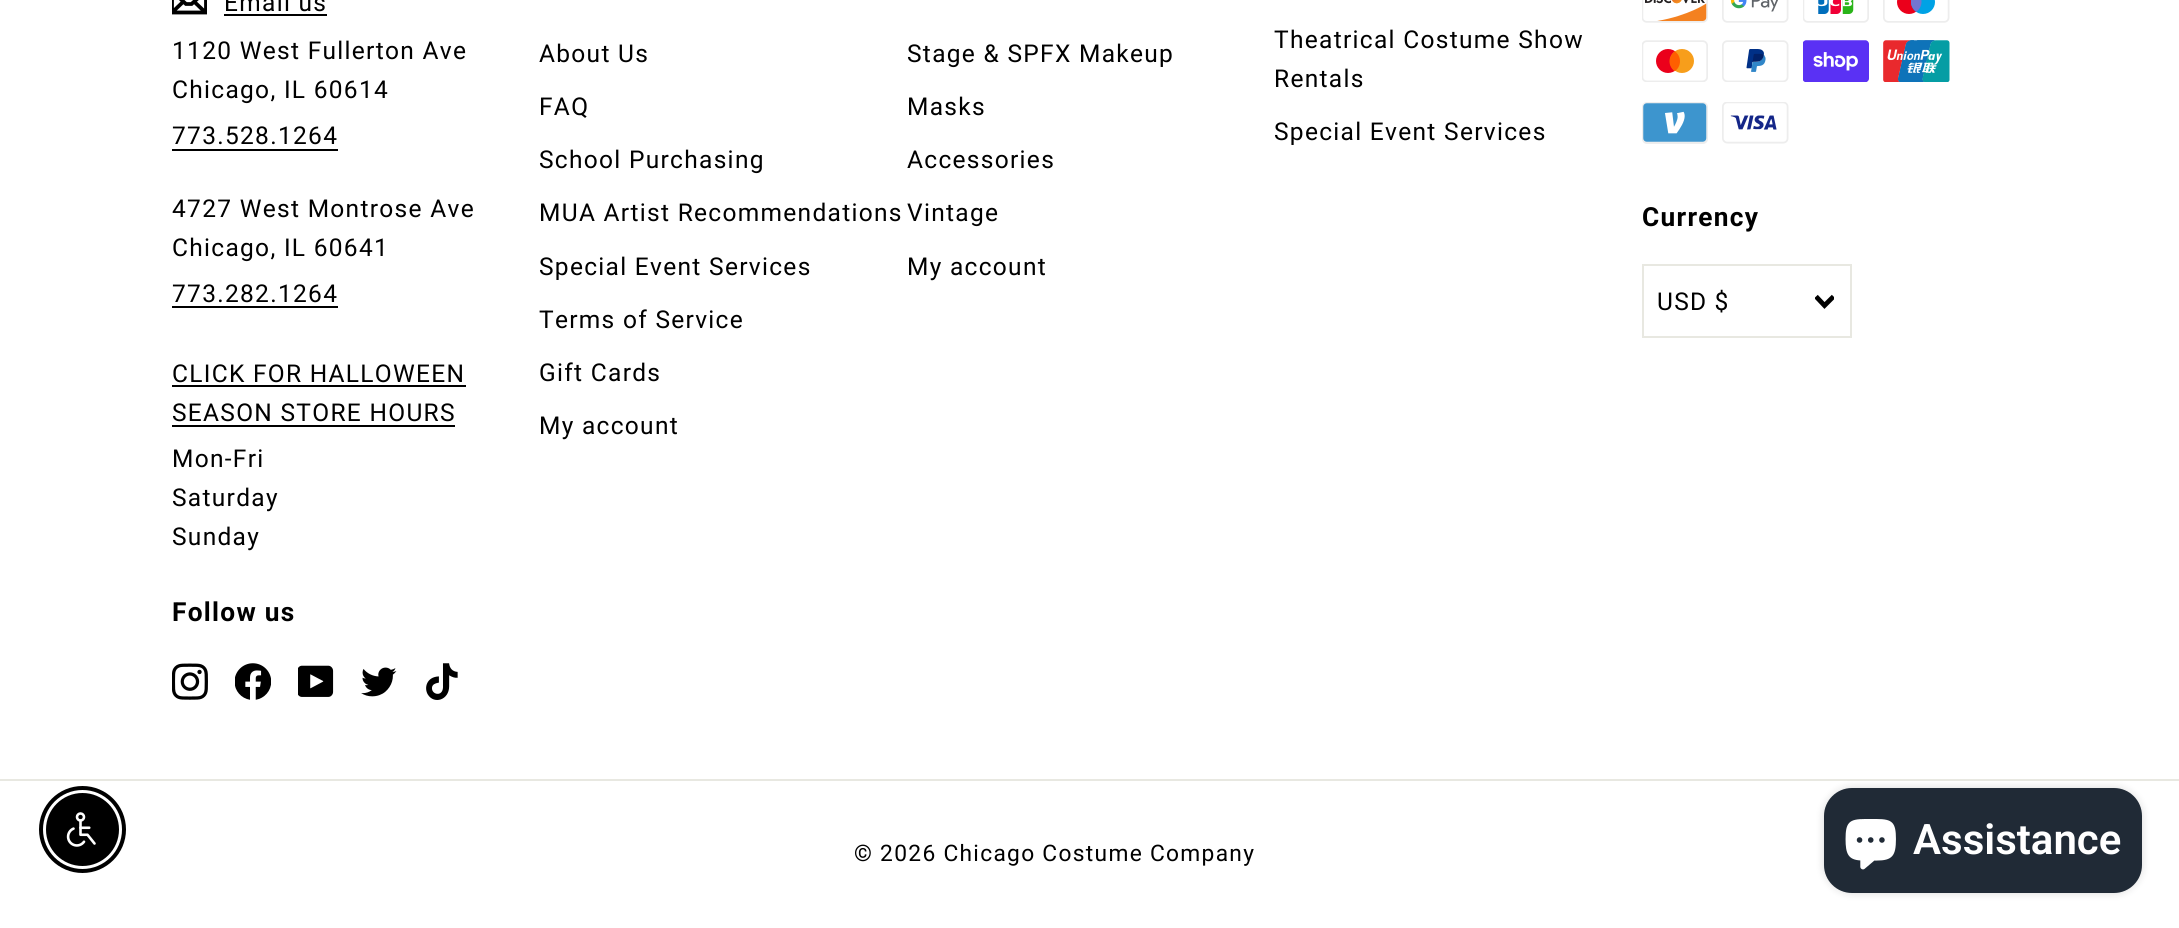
import math
import cairo

surface = cairo.ImageSurface(cairo.FORMAT_RGB24, 2179, 928)
cr = cairo.Context(surface)
options = cairo.FontOptions()
options.set_hint_metrics(cairo.HINT_METRICS_OFF)
options.set_hint_style(cairo.HINT_STYLE_NONE)
cr.set_font_options(options)
cr.set_miter_limit(4)


def rgb(code):
    cr.set_source_rgb(*(v / 255 for v in bytes.fromhex(code[-6:])))


def tracked(x, y, s, letter, word):
    cr.move_to(x, y)
    for ch in s:
        cr.show_text(ch)
        cr.rel_move_to(letter + word * (ch == ' '), 0)


def rrect(x, y, w, h, r):
    cr.new_sub_path()
    for i, (u, v) in enumerate([(x + w - r, y + h - r), (x + r, y + h - r), (x + r, y + r), (x + w - r, y + r)]):
        cr.arc(u, v, r, i * math.pi / 2, (i + 1) * math.pi / 2)
    cr.close_path()


def soft_shadow(x, y, w, h, r, blur, alpha):
    cr.push_group_with_content(cairo.CONTENT_ALPHA)
    cr.set_operator(cairo.OPERATOR_SOURCE)
    for i in range(15, -16, -2):
        e = blur * i / 6
        if min(w, h) + 2 * e > 0:
            cr.set_source_rgba(0, 0, 0, alpha * math.erfc((i - 1) / 8.5) / 2)
            rrect(x - e, y - e, w + 2 * e, h + 2 * e, max(0, min(r + e + blur * .6, min(w, h) / 2 + e)))
            cr.fill()
    cr.mask(cr.pop_group())


def image(path, x, y, w, h):
    cr.save()
    cr.set_source_surface(cairo.ImageSurface.create_from_png(path), x, y)
    cr.rectangle(x, y, w, h)
    cr.fill()
    cr.restore()


rgb("#ffffff")
cr.paint()
cr.arc(82.5, 829.5, 41.5, 0, 2 * math.pi)
rgb("#000000")
cr.set_line_width(4)
cr.stroke()
cr.arc(82.5, 829.5, 35.5, 0, 2 * math.pi)
cr.fill_preserve()
cr.set_line_width(2)
cr.stroke()
image("img/1.png", 66, 812, 30, 35)
cr.save()
cr.rectangle(172, 0, 35, 19)
cr.clip()
cr.new_path()
cr.move_to(206, 12.5)
cr.line_to(172, 12.5)
cr.line_to(172, -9)
cr.line_to(206, -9)
cr.close_path()
cr.move_to(172, -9)
cr.line_to(186, 4)
cr.line_to(191.5, 4)
cr.line_to(206, -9)
cr.move_to(183.5, 1.5)
cr.line_to(172.5, 12)
cr.move_to(205.5, 12.5)
cr.line_to(194, 1.5)
cr.set_line_width(3.8)
cr.stroke()
cr.restore()
for x, y, w, h, color in [
    (224, 14, 103, 2, "#000000"),
    (172, 149, 166, 2, "#000000"),
    (172, 306, 166, 2, "#000000"),
    (172, 385, 294, 2, "#000000"),
    (172, 425, 283, 2, "#000000"),
]:
    rgb(color)
    cr.rectangle(x, y, w, h)
    cr.fill()
image("img/2.png", 172, 663, 36, 37)
image("img/3.png", 235, 663, 36, 37)
image("img/4.png", 298, 665, 36, 32)
image("img/5.png", 361, 667, 36, 30)
image("img/6.png", 426, 663, 32, 37)
image("img/7.png", 1642, 0, 66, 23)
image("img/8.png", 1722, 0, 67, 23)
image("img/9.png", 1803, 0, 66, 23)
image("img/10.png", 1883, 0, 67, 23)
image("img/11.png", 1642, 40, 66, 42)
image("img/12.png", 1722, 40, 67, 42)
image("img/13.png", 1803, 40, 66, 42)
image("img/14.png", 1883, 40, 67, 42)
image("img/15.png", 1642, 102, 66, 42)
image("img/16.png", 1722, 102, 67, 42)
cr.rectangle(1643, 265, 208, 72)
rgb("#e8e8e1")
cr.stroke()
cr.save()
cr.rectangle(1815, 292, 19, 20)
cr.clip()
cr.new_path()
cr.move_to(1816, 296.5)
cr.line_to(1824.5, 305.5)
cr.line_to(1833.5, 296.5)
rgb("#000000")
cr.set_line_width(4.8)
cr.stroke()
cr.restore()
cr.rectangle(0, 779, 2179, 2)
cr.fill()
rgb("#000000")
soft_shadow(1824, 788, 318, 105, 28, 4.5, 0.15)
rgb("#202a36")
rrect(1824, 788, 318, 105, 28)
cr.fill()
image("img/17.png", 1845, 819, 51, 51)
cr.select_font_face("Roboto")
cr.set_font_size(24.5)
rgb("#000000")
for x, y, s in [
    (224, 11, "Email us"),
    (172, 59, "1120 West Fullerton Ave"),
    (172, 98, "Chicago, IL 60614"),
    (172, 144, "773.528.1264"),
    (172, 217, "4727 West Montrose Ave"),
    (172, 256, "Chicago, IL 60641"),
    (172, 302, "773.282.1264"),
    (172, 382, "CLICK FOR HALLOWEEN"),
    (172, 421, "SEASON STORE HOURS"),
    (172, 467, "Mon-Fri"),
    (172, 506, "Saturday"),
    (172, 545, "Sunday"),
]:
    tracked(x, y, s, 1.3, 0)
cr.select_font_face("Roboto", cairo.FONT_SLANT_NORMAL, cairo.FONT_WEIGHT_BOLD)
cr.set_font_size(26.25)
tracked(172, 621, "Follow us", 1.3, 0)
cr.select_font_face("Roboto")
cr.set_font_size(24.5)
for x, y, s in [
    (539, 62, "About Us"),
    (539, 115, "FAQ"),
    (539, 168, "School Purchasing"),
    (539, 221, "MUA Artist Recommendations"),
    (539, 275, "Special Event Services"),
    (539, 328, "Terms of Service"),
    (539, 381, "Gift Cards"),
    (539, 434, "My account"),
    (907, 62, "Stage & SPFX Makeup"),
    (907, 115, "Masks"),
    (907, 168, "Accessories"),
    (907, 221, "Vintage"),
    (907, 275, "My account"),
    (1274, 48, "Theatrical Costume Show"),
    (1274, 87, "Rentals"),
    (1274, 140, "Special Event Services"),
]:
    tracked(x, y, s, 1.3, 0)
cr.select_font_face("Roboto", cairo.FONT_SLANT_NORMAL, cairo.FONT_WEIGHT_BOLD)
cr.set_font_size(26.25)
tracked(1642, 226, "Currency", 1.3, 0)
cr.select_font_face("Roboto")
cr.set_font_size(24.5)
tracked(1657, 310, "USD $", 1.25, 0)
cr.set_font_size(22.75)
tracked(854, 861, "© 2026 Chicago Costume Company", 1.3, 0)
cr.select_font_face("Roboto SemiBold")
cr.set_font_size(42)
rgb("#ffffff")
cr.move_to(1913, 854)
cr.show_text("Assistance")
surface.write_to_png("page.png")
